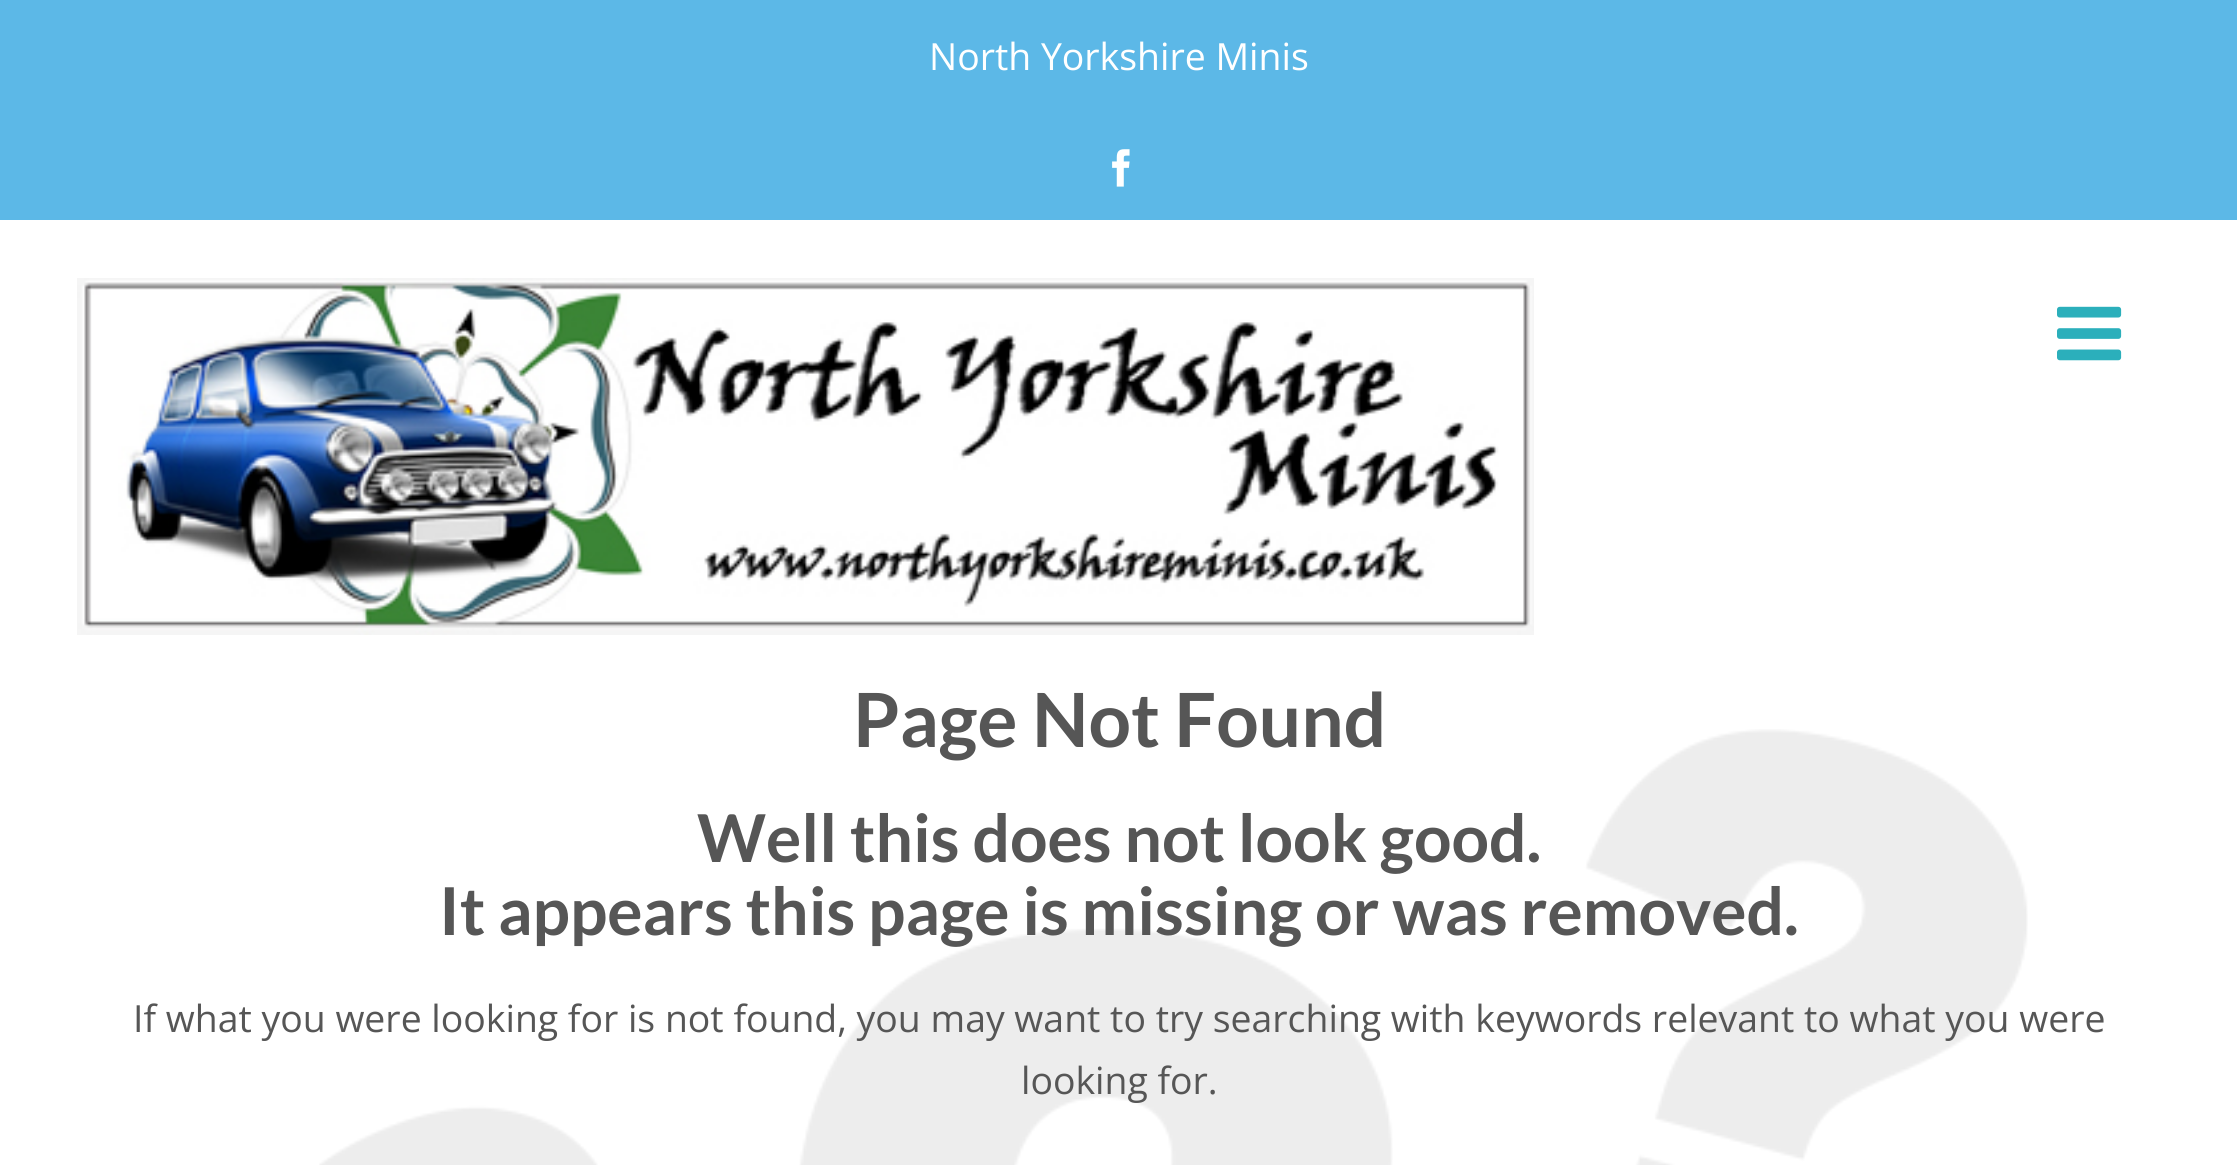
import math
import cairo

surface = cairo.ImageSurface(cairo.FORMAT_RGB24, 2237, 1165)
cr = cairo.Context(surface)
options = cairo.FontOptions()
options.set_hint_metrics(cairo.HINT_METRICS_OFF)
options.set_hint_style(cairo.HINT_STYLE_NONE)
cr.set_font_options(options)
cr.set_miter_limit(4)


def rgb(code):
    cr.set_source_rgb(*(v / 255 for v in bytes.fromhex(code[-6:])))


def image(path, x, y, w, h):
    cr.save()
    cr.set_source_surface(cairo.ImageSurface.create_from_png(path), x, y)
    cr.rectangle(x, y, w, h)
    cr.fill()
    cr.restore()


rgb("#ffffff")
cr.paint()
rgb("#5cb8e7")
cr.rectangle(0, 0, 2237, 220)
cr.fill()
image("img/1.png", 1112, 149, 18, 38)
image("img/2.png", 77, 278, 1457, 357)
image("img/3.png", 2057, 306, 65, 55)
image("img/4.png", 319, 729, 1709, 436)
cr.select_font_face("Open Sans")
cr.set_font_size(37.4)
rgb("#ffffff")
cr.move_to(929, 70)
cr.show_text("North Yorkshire Minis")
cr.select_font_face("Lato", cairo.FONT_SLANT_NORMAL, cairo.FONT_WEIGHT_BOLD)
cr.set_font_size(74.75)
rgb("#565656")
cr.move_to(853, 747)
cr.show_text("Page Not Found")
cr.set_font_size(66)
cr.move_to(697, 862)
cr.show_text("Well this does not look good.")
cr.move_to(439, 935)
cr.show_text("It appears this page is missing or was removed.")
cr.select_font_face("Open Sans")
cr.set_font_size(37.4)
cr.move_to(133, 1032)
cr.show_text("If what you were looking for is not found, you may want to try searching with keywords relevant to what you were")
cr.move_to(1021, 1094)
cr.show_text("looking for.")
surface.write_to_png("page.png")
